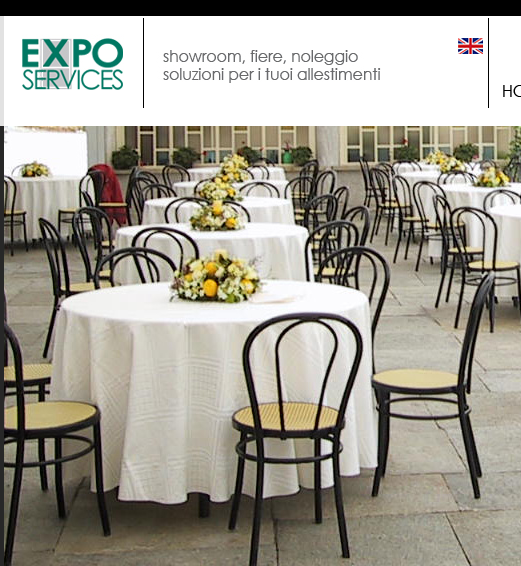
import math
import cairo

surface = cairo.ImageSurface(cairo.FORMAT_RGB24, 521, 566)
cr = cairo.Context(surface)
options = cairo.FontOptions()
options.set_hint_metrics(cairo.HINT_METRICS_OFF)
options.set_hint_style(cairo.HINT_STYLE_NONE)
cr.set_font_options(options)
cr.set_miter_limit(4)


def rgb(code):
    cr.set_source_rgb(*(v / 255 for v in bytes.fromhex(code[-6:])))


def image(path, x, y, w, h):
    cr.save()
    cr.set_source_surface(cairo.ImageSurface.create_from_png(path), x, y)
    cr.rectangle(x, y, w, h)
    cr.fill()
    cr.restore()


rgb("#ffffff")
cr.paint()
image("img/1.png", 0, 0, 4, 126)
rgb("#000000")
cr.rectangle(4, 0, 517, 16)
cr.fill()
image("img/2.png", 22, 18, 359, 90)
cr.rectangle(488, 18, 1, 90)
cr.fill()
image("img/3.png", 458, 38, 25, 16)
image("img/4.png", 503, 85, 18, 12)
rgb("#272727")
cr.rectangle(0, 126, 4, 440)
cr.fill()
image("img/5.png", 4, 126, 517, 440)
surface.write_to_png("page.png")
